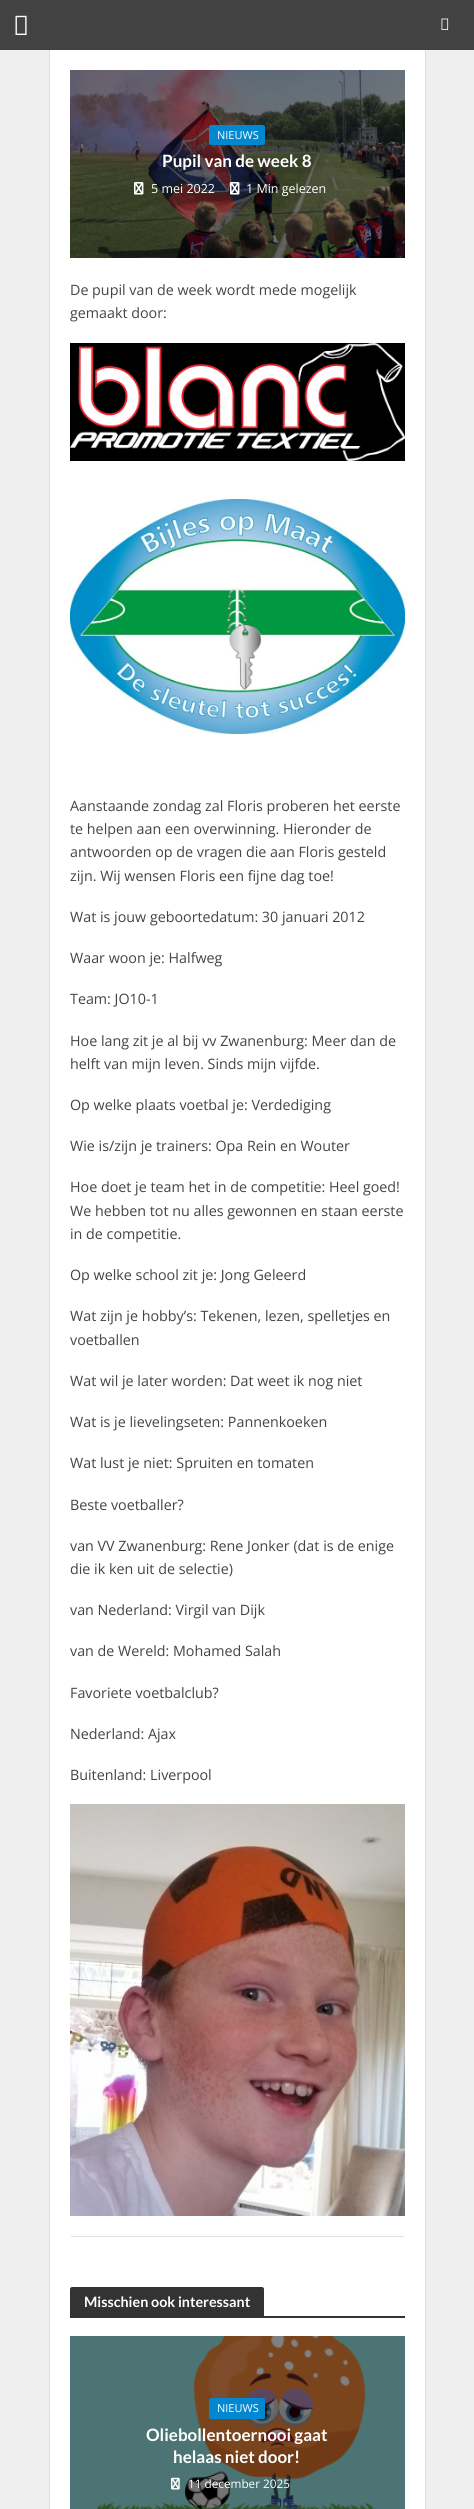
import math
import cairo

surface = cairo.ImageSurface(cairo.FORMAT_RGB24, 474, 2509)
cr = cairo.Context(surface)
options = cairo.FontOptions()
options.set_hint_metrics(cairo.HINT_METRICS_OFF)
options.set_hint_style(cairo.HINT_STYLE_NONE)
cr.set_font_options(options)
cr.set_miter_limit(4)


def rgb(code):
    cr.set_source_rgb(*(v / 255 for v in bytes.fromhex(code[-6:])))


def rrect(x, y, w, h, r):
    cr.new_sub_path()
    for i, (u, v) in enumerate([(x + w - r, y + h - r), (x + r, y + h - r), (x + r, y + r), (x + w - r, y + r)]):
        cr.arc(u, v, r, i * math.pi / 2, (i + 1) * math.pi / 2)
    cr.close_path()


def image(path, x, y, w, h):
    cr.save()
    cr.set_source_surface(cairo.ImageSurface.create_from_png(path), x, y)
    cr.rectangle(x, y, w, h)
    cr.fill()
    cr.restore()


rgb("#efefef")
cr.paint()
cr.rectangle(49.5, 49.5, 376, 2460)
rgb("#dedede")
cr.set_line_width(1)
cr.stroke()
rgb("#424242")
cr.rectangle(0, 0, 474, 50)
cr.fill()
image("img/1.png", 15, 15, 12, 20)
image("img/2.png", 441, 18, 8, 12)
rgb("#ffffff")
cr.rectangle(50, 50, 375, 2459)
cr.fill()
image("img/3.png", 70, 70, 335, 188)
rgb("#0288d1")
rrect(209, 125, 56, 20, 2)
cr.fill()
image("img/4.png", 134, 182, 10, 13)
image("img/5.png", 230, 182, 10, 13)
image("img/6.png", 70, 343, 335, 118)
image("img/7.png", 70, 499, 335, 235)
image("img/8.png", 70, 1804, 335, 412)
rgb("#e3e3e3")
cr.rectangle(71, 2236, 333, 1)
cr.fill()
rgb("#333333")
cr.new_path()
cr.move_to(72, 2287)
cr.line_to(262, 2287)
cr.curve_to(263, 2287, 264, 2288, 264, 2289)
cr.line_to(264, 2316)
cr.line_to(70, 2316)
cr.line_to(70, 2289)
cr.curve_to(70, 2288, 71, 2287, 72, 2287)
cr.close_path()
cr.fill()
cr.rectangle(70, 2316, 335, 2)
cr.fill()
image("img/9.png", 70, 2336, 335, 173)
rgb("#0288d1")
rrect(209, 2398, 56, 21, 2)
cr.fill()
image("img/10.png", 171, 2477, 9, 13)
cr.select_font_face("Open Sans")
cr.set_font_size(11)
rgb("#ffffff")
cr.move_to(217, 139)
cr.show_text("NIEUWS")
cr.select_font_face("Lato", cairo.FONT_SLANT_NORMAL, cairo.FONT_WEIGHT_BOLD)
cr.set_font_size(17)
cr.move_to(162, 167)
cr.show_text("Pupil van de week 8")
cr.select_font_face("Open Sans")
cr.set_font_size(12.5)
cr.move_to(151, 193)
cr.show_text("5 mei 2022")
cr.move_to(246, 193)
cr.show_text("1 Min gelezen")
cr.set_font_size(14.3)
rgb("#444444")
for x, y, s in [
    (70, 295, "De pupil van de week wordt mede mogelijk"),
    (70, 318, "gemaakt door:"),
    (70, 811, "Aanstaande zondag zal Floris proberen het eerste"),
    (70, 834, "te helpen aan een overwinning. Hieronder de"),
    (70, 857, "antwoorden op de vragen die aan Floris gesteld"),
    (70, 881, "zijn. Wij wensen Floris een fijne dag toe!"),
    (70, 922, "Wat is jouw geboortedatum: 30 januari 2012"),
    (70, 963, "Waar woon je: Halfweg"),
    (70, 1004, "Team: JO10-1"),
    (70, 1046, "Hoe lang zit je al bij vv Zwanenburg: Meer dan de"),
    (70, 1069, "helft van mijn leven. Sinds mijn vijfde."),
    (70, 1110, "Op welke plaats voetbal je: Verdediging"),
    (70, 1151, "Wie is/zijn je trainers: Opa Rein en Wouter"),
    (70, 1192, "Hoe doet je team het in de competitie: Heel goed!"),
    (70, 1216, "We hebben tot nu alles gewonnen en staan eerste"),
    (70, 1239, "in de competitie."),
    (70, 1280, "Op welke school zit je: Jong Geleerd"),
    (70, 1321, "Wat zijn je hobby’s: Tekenen, lezen, spelletjes en"),
    (70, 1345, "voetballen"),
    (70, 1386, "Wat wil je later worden: Dat weet ik nog niet"),
    (70, 1427, "Wat is je lievelingseten: Pannenkoeken"),
    (70, 1468, "Wat lust je niet: Spruiten en tomaten"),
    (70, 1510, "Beste voetballer?"),
    (70, 1551, "van VV Zwanenburg: Rene Jonker (dat is de enige"),
    (70, 1574, "die ik ken uit de selectie)"),
    (70, 1615, "van Nederland: Virgil van Dijk"),
    (70, 1656, "van de Wereld: Mohamed Salah"),
    (70, 1698, "Favoriete voetbalclub?"),
    (70, 1739, "Nederland: Ajax"),
    (70, 1780, "Buitenland: Liverpool"),
]:
    cr.move_to(x, y)
    cr.show_text(s)
cr.select_font_face("Lato", cairo.FONT_SLANT_NORMAL, cairo.FONT_WEIGHT_BOLD)
rgb("#ffffff")
cr.move_to(84, 2307)
cr.show_text("Misschien ook interessant")
cr.select_font_face("Open Sans")
cr.set_font_size(11)
cr.move_to(217, 2412)
cr.show_text("NIEUWS")
cr.select_font_face("Lato", cairo.FONT_SLANT_NORMAL, cairo.FONT_WEIGHT_BOLD)
cr.set_font_size(17)
cr.move_to(146, 2441)
cr.show_text("Oliebollentoernooi gaat")
cr.move_to(173, 2463)
cr.show_text("helaas niet door!")
cr.select_font_face("Open Sans")
cr.set_font_size(11.75)
cr.move_to(188, 2488)
cr.show_text("11 december 2025")
surface.write_to_png("page.png")
